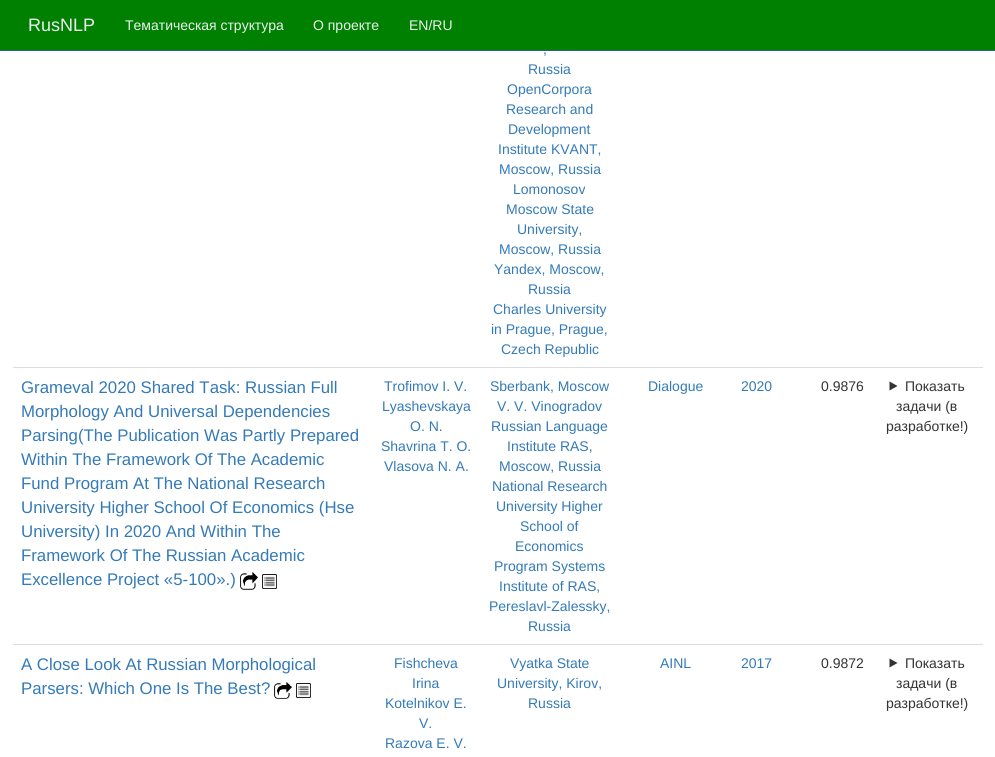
import math
import cairo

surface = cairo.ImageSurface(cairo.FORMAT_RGB24, 995, 757)
cr = cairo.Context(surface)
options = cairo.FontOptions()
options.set_hint_metrics(cairo.HINT_METRICS_OFF)
options.set_hint_style(cairo.HINT_STYLE_NONE)
cr.set_font_options(options)
cr.set_miter_limit(4)


def rgb(code):
    cr.set_source_rgb(*(v / 255 for v in bytes.fromhex(code[-6:])))


def image(path, x, y, w, h):
    cr.save()
    cr.set_source_surface(cairo.ImageSurface.create_from_png(path), x, y)
    cr.rectangle(x, y, w, h)
    cr.fill()
    cr.restore()


rgb("#ffffff")
cr.paint()
rgb("#008000")
cr.rectangle(0, 0, 995, 50)
cr.fill()
rgb("#286090")
cr.rectangle(0, 50, 995, 1)
cr.fill()
image("img/1.png", 240, 572, 18, 18)
image("img/2.png", 262, 574, 15, 15)
rgb("#dddddd")
cr.rectangle(13, 367, 970, 1)
cr.fill()
rgb("#333333")
cr.new_path()
cr.move_to(889.5, 381.5)
cr.line_to(897.5, 386)
cr.line_to(889.5, 390.5)
cr.close_path()
cr.fill()
image("img/3.png", 274, 682, 18, 17)
image("img/2.png", 296, 683, 15, 15)
rgb("#dddddd")
cr.rectangle(13, 644, 970, 1)
cr.fill()
rgb("#333333")
cr.new_path()
cr.move_to(889.5, 658.5)
cr.line_to(897.5, 663)
cr.line_to(889.5, 667.5)
cr.close_path()
cr.fill()
cr.select_font_face("Liberation Sans")
cr.set_font_size(18)
rgb("#ecf0f1")
cr.move_to(28, 31)
cr.show_text("RusNLP")
cr.set_font_size(14)
for x, y, s in [
    (125, 30, "Тематическая структура"),
    (313, 30, "О проекте"),
    (409, 30, "EN/RU"),
]:
    cr.move_to(x, y)
    cr.show_text(s)
rgb("#337ab7")
for x, y, s in [
    (543, 54, ","),
    (528, 74, "Russia"),
    (507, 94, "OpenCorpora"),
    (506, 114, "Research and"),
    (508, 134, "Development"),
    (498, 154, "Institute KVANT,"),
    (499, 174, "Moscow, Russia"),
    (513, 194, "Lomonosov"),
    (506, 214, "Moscow State"),
    (517, 234, "University,"),
    (499, 254, "Moscow, Russia"),
    (494, 274, "Yandex, Moscow,"),
    (528, 294, "Russia"),
    (493, 314, "Charles University"),
    (491, 334, "in Prague, Prague,"),
    (501, 354, "Czech Republic"),
]:
    cr.move_to(x, y)
    cr.show_text(s)
cr.set_font_size(16.8)
for x, y, s in [
    (21, 393, "Grameval 2020 Shared Task: Russian Full"),
    (21, 417, "Morphology And Universal Dependencies"),
    (21, 441, "Parsing(The Publication Was Partly Prepared"),
    (21, 465, "Within The Framework Of The Academic"),
    (21, 489, "Fund Program At The National Research"),
    (21, 513, "University Higher School Of Economics (Hse"),
    (21, 537, "University) In 2020 And Within The"),
    (21, 561, "Framework Of The Russian Academic"),
    (21, 585, "Excellence Project «5-100».)"),
]:
    cr.move_to(x, y)
    cr.show_text(s)
cr.set_font_size(14)
for x, y, s in [
    (384, 391, "Trofimov I. V."),
    (382, 411, "Lyashevskaya"),
    (410, 431, "O. N."),
    (381, 451, "Shavrina T. O."),
    (384, 471, "Vlasova N. A."),
    (490, 391, "Sberbank, Moscow"),
    (497, 411, "V. V. Vinogradov"),
    (491, 431, "Russian Language"),
    (507, 451, "Institute RAS,"),
    (499, 471, "Moscow, Russia"),
    (492, 491, "National Research"),
    (496, 511, "University Higher"),
    (520, 531, "School of"),
    (515, 551, "Economics"),
    (494, 571, "Program Systems"),
    (499, 591, "Institute of RAS,"),
    (489, 611, "Pereslavl-Zalessky,"),
    (528, 631, "Russia"),
    (648, 391, "Dialogue"),
    (741, 391, "2020"),
]:
    cr.move_to(x, y)
    cr.show_text(s)
rgb("#333333")
for x, y, s in [
    (821, 391, "0.9876"),
    (905, 391, "Показать"),
    (896, 411, "задачи (в"),
    (886, 431, "разработке!)"),
]:
    cr.move_to(x, y)
    cr.show_text(s)
cr.set_font_size(16.8)
rgb("#337ab7")
cr.move_to(21, 670)
cr.show_text("A Close Look At Russian Morphological")
cr.move_to(21, 694)
cr.show_text("Parsers: Which One Is The Best?")
cr.set_font_size(14)
for x, y, s in [
    (394, 668, "Fishcheva"),
    (412, 688, "Irina"),
    (385, 708, "Kotelnikov E."),
    (419, 728, "V."),
    (385, 748, "Razova E. V."),
    (510, 668, "Vyatka State"),
    (497, 688, "University, Kirov,"),
    (528, 708, "Russia"),
    (660, 668, "AINL"),
    (741, 668, "2017"),
]:
    cr.move_to(x, y)
    cr.show_text(s)
rgb("#333333")
for x, y, s in [
    (821, 668, "0.9872"),
    (905, 668, "Показать"),
    (896, 688, "задачи (в"),
    (886, 708, "разработке!)"),
]:
    cr.move_to(x, y)
    cr.show_text(s)
surface.write_to_png("page.png")
